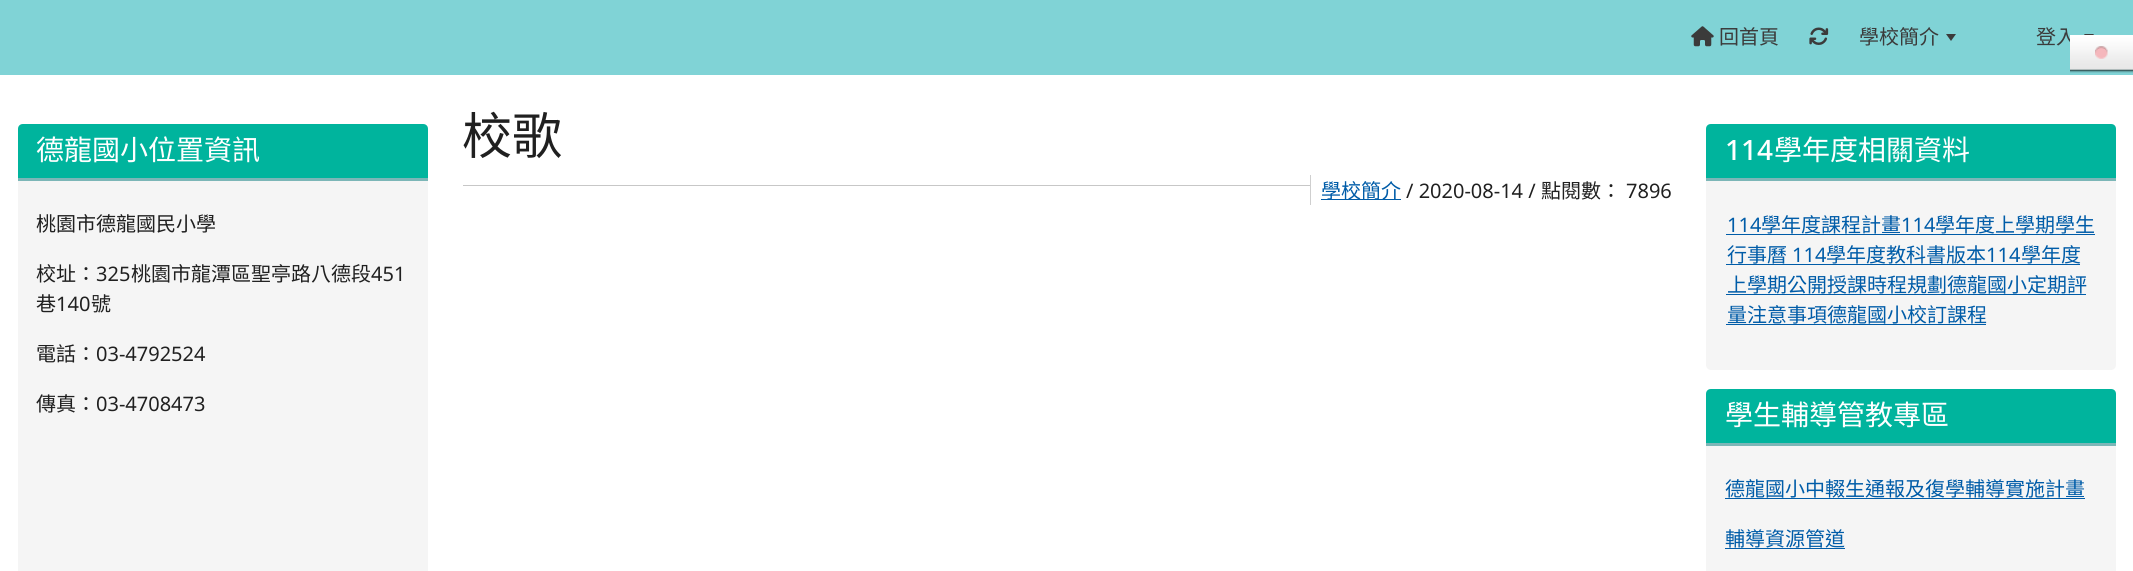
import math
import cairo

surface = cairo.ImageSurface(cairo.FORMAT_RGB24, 2133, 571)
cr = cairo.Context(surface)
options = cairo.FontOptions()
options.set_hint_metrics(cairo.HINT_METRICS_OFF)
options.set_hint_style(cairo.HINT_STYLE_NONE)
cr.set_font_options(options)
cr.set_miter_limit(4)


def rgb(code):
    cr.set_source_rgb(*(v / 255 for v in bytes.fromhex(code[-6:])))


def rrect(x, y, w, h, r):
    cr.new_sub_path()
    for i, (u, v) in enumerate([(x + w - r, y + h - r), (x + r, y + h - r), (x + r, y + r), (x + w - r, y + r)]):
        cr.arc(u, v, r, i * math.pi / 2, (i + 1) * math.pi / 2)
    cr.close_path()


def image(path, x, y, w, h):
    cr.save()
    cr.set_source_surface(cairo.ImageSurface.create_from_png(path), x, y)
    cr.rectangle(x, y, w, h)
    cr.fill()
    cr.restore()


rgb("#ffffff")
cr.paint()
rgb("#80d3d6")
cr.rectangle(0, 0, 2133, 75)
cr.fill()
image("img/1.png", 1691, 26, 23, 21)
image("img/2.png", 1809, 27, 20, 18)
rgb("#3b3b3b")
cr.new_path()
cr.move_to(1946, 34)
cr.line_to(1956, 34)
cr.line_to(1951, 41)
cr.close_path()
cr.fill()
cr.new_path()
cr.move_to(2084, 34)
cr.line_to(2094, 34)
cr.line_to(2089, 41)
cr.close_path()
cr.fill()
rgb("#f5f5f5")
rrect(18, 124, 410, 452, 5)
cr.fill()
rgb("#00b49d")
cr.new_path()
cr.move_to(23, 124)
cr.line_to(423, 124)
cr.curve_to(426, 124, 428, 126, 428, 129)
cr.line_to(428, 180)
cr.line_to(18, 180)
cr.line_to(18, 129)
cr.curve_to(18, 126, 20, 124, 23, 124)
cr.close_path()
cr.fill()
for x, y, w, h, color in [
    (18, 178, 410, 3, "#7cb6b7"),
    (463, 185, 847, 1, "#c7c7c7"),
    (1310, 175, 1, 30, "#cfcfcf"),
    (1321, 199, 80, 1, "#005ca8"),
]:
    rgb(color)
    cr.rectangle(x, y, w, h)
    cr.fill()
rgb("#f5f5f5")
rrect(1706, 124, 410, 246, 5)
cr.fill()
rgb("#00b49d")
cr.new_path()
cr.move_to(1711, 124)
cr.line_to(2111, 124)
cr.curve_to(2114, 124, 2116, 126, 2116, 129)
cr.line_to(2116, 180)
cr.line_to(1706, 180)
cr.line_to(1706, 129)
cr.curve_to(1706, 126, 1708, 124, 1711, 124)
cr.close_path()
cr.fill()
for x, y, w, h, color in [
    (1706, 178, 410, 3, "#7cb6b7"),
    (1726, 234, 369, 1, "#005ca8"),
    (1726, 264, 354, 1, "#005ca8"),
    (1726, 294, 360, 1, "#005ca8"),
    (1726, 324, 260, 1, "#005ca8"),
]:
    rgb(color)
    cr.rectangle(x, y, w, h)
    cr.fill()
rgb("#f5f5f5")
rrect(1706, 389, 410, 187, 5)
cr.fill()
rgb("#00b49d")
cr.new_path()
cr.move_to(1711, 389)
cr.line_to(2111, 389)
cr.curve_to(2114, 389, 2116, 391, 2116, 394)
cr.line_to(2116, 445)
cr.line_to(1706, 445)
cr.line_to(1706, 394)
cr.curve_to(1706, 391, 1708, 389, 1711, 389)
cr.close_path()
cr.fill()
for x, y, w, h, color in [
    (1706, 443, 410, 3, "#7cb6b7"),
    (1725, 498, 360, 1, "#005ca8"),
    (1725, 548, 120, 1, "#005ca8"),
]:
    rgb(color)
    cr.rectangle(x, y, w, h)
    cr.fill()
cr.select_font_face("Noto Sans CJK TC")
cr.set_font_size(20)
rgb("#3b3b3b")
for x, y, s in [
    (1719, 44, "回首頁"),
    (1859, 44, "學校簡介"),
    (2036, 44, "登入"),
]:
    cr.move_to(x, y)
    cr.show_text(s)
image("img/3.png", 2070, 35, 63, 38)
image("img/4.png", 2095, 46, 13, 13)
cr.set_font_size(28)
rgb("#ffffff")
cr.move_to(36, 160)
cr.show_text("德龍國小位置資訊")
cr.set_font_size(20)
rgb("#202020")
cr.move_to(36, 231)
cr.show_text("桃園市德龍國民小學")
cr.move_to(36, 281)
cr.show_text("校址：")
cr.select_font_face("Noto Sans")
cr.move_to(96, 281)
cr.show_text("325")
cr.select_font_face("Noto Sans CJK TC")
cr.move_to(131, 281)
cr.show_text("桃園市龍潭區聖亭路八德段")
cr.select_font_face("Noto Sans")
cr.move_to(371, 281)
cr.show_text("451")
cr.select_font_face("Noto Sans CJK TC")
cr.move_to(36, 311)
cr.show_text("巷")
cr.select_font_face("Noto Sans")
cr.move_to(56, 311)
cr.show_text("140")
cr.select_font_face("Noto Sans CJK TC")
cr.move_to(91, 311)
cr.show_text("號")
cr.move_to(36, 361)
cr.show_text("電話：")
cr.select_font_face("Noto Sans")
cr.move_to(96, 361)
cr.show_text("03-4792524")
cr.select_font_face("Noto Sans CJK TC")
cr.move_to(36, 411)
cr.show_text("傳真：")
cr.select_font_face("Noto Sans")
cr.move_to(96, 411)
cr.show_text("03-4708473")
cr.select_font_face("Noto Sans CJK TC")
cr.set_font_size(50)
cr.move_to(462, 154)
cr.show_text("校歌")
cr.set_font_size(20)
rgb("#005ca8")
cr.move_to(1321, 198)
cr.show_text("學校簡介")
cr.select_font_face("Noto Sans")
rgb("#202020")
cr.move_to(1406, 198)
cr.show_text("/ 2020-08-14 /")
cr.select_font_face("Noto Sans CJK TC")
cr.move_to(1541, 198)
cr.show_text("點閱數：")
cr.select_font_face("Noto Sans")
cr.move_to(1626, 198)
cr.show_text("7896")
cr.select_font_face("Noto Sans Medium")
cr.set_font_size(28)
rgb("#ffffff")
cr.move_to(1725, 160)
cr.show_text("114")
cr.select_font_face("Noto Sans CJK TC")
cr.move_to(1774, 160)
cr.show_text("學年度相關資料")
cr.select_font_face("Noto Sans")
cr.set_font_size(20)
rgb("#005ca8")
cr.move_to(1727, 232)
cr.show_text("114")
cr.select_font_face("Noto Sans CJK TC")
cr.move_to(1761, 232)
cr.show_text("學年度課程計畫")
cr.select_font_face("Noto Sans")
cr.move_to(1901, 232)
cr.show_text("114")
cr.select_font_face("Noto Sans CJK TC")
cr.move_to(1935, 232)
cr.show_text("學年度上學期學生")
cr.move_to(1727, 262)
cr.show_text("行事曆")
cr.select_font_face("Noto Sans")
cr.move_to(1792, 262)
cr.show_text("114")
cr.select_font_face("Noto Sans CJK TC")
cr.move_to(1826, 262)
cr.show_text("學年度教科書版本")
cr.select_font_face("Noto Sans")
cr.move_to(1986, 262)
cr.show_text("114")
cr.select_font_face("Noto Sans CJK TC")
for x, y, s in [
    (2021, 262, "學年度"),
    (1727, 292, "上學期公開授課時程規劃德龍國小定期評"),
    (1727, 322, "量注意事項德龍國小校訂課程"),
]:
    cr.move_to(x, y)
    cr.show_text(s)
cr.set_font_size(28)
rgb("#ffffff")
cr.move_to(1725, 425)
cr.show_text("學生輔導管教專區")
cr.set_font_size(20)
rgb("#005ca8")
cr.move_to(1725, 496)
cr.show_text("德龍國小中輟生通報及復學輔導實施計畫")
cr.move_to(1725, 546)
cr.show_text("輔導資源管道")
surface.write_to_png("page.png")
